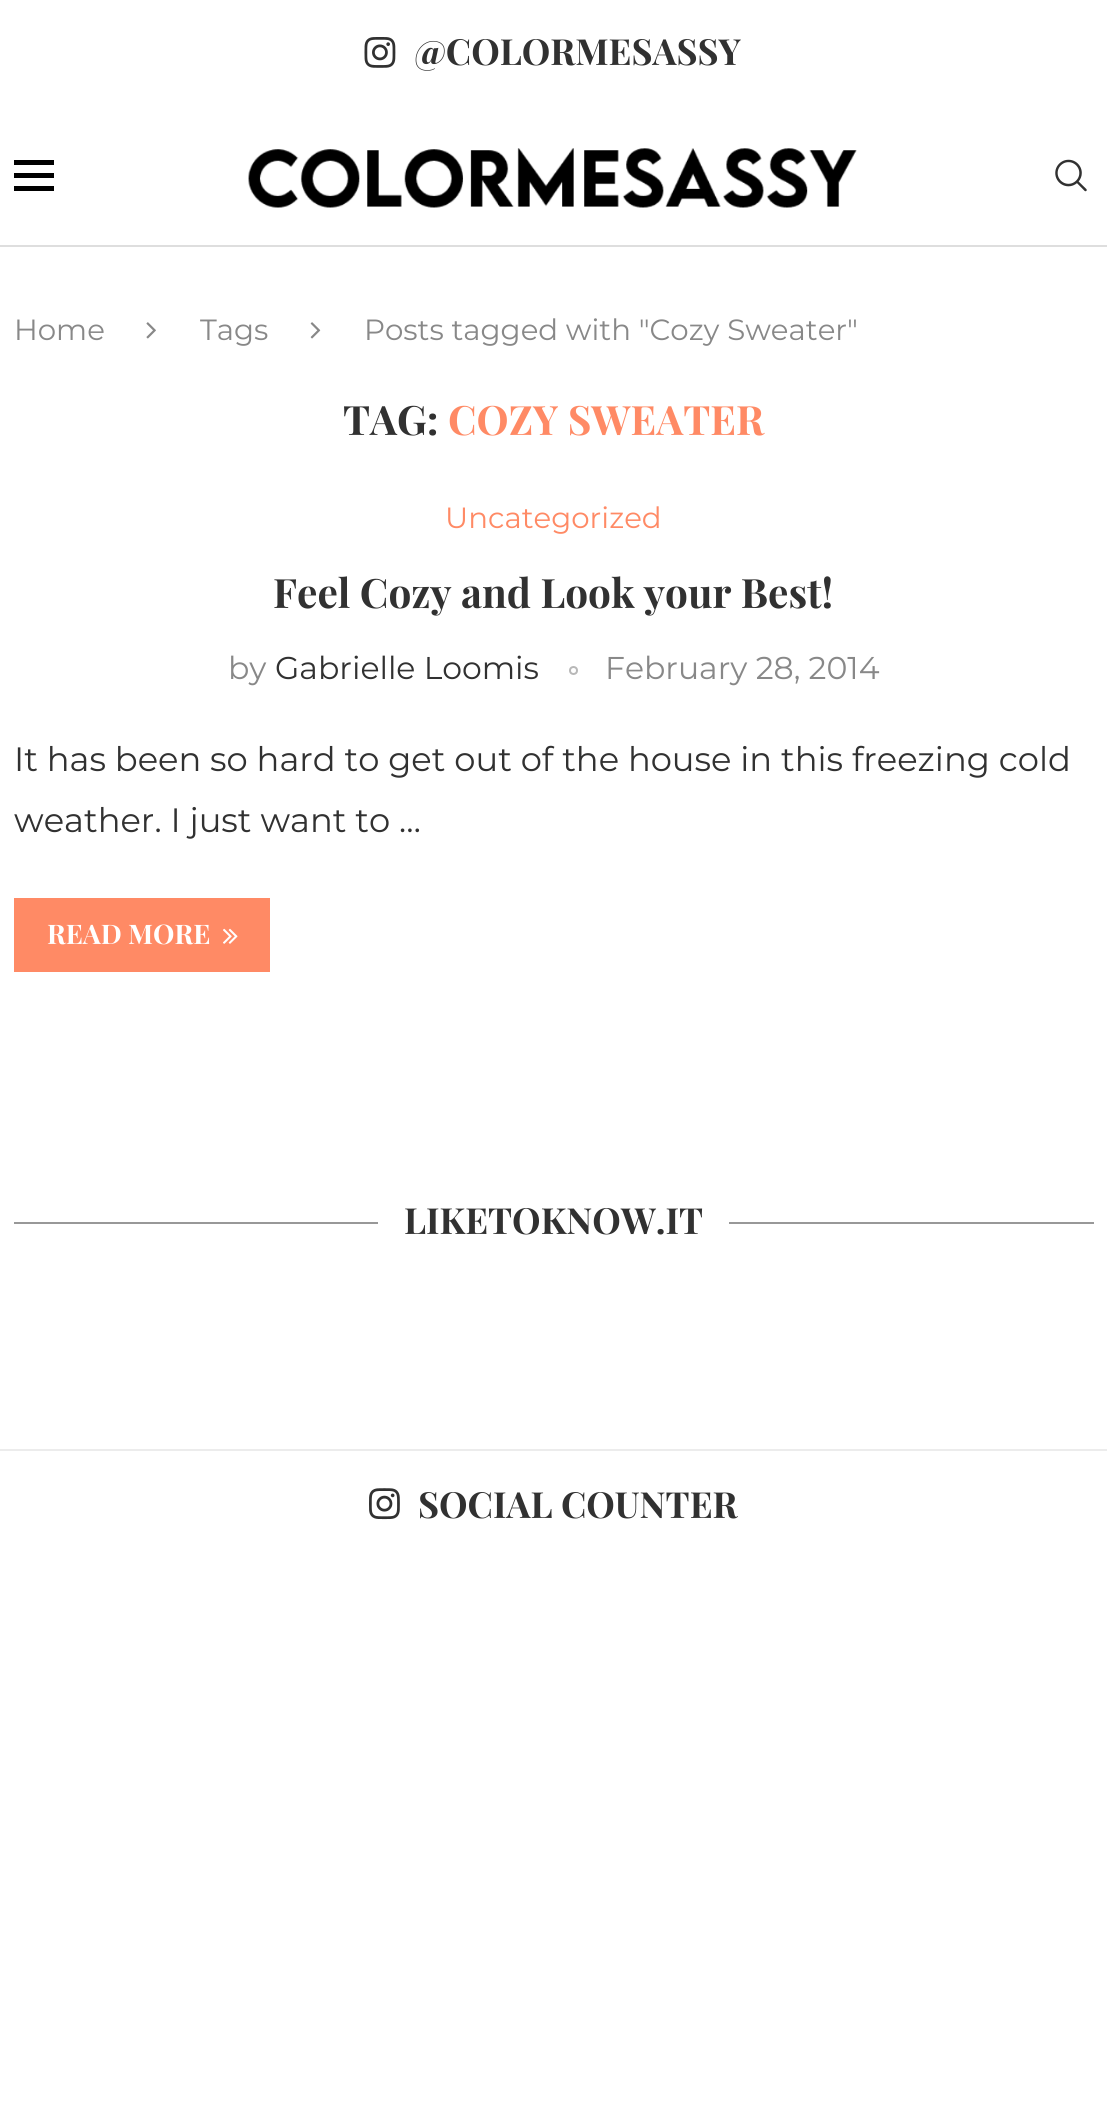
import math
import cairo

surface = cairo.ImageSurface(cairo.FORMAT_RGB24, 1107, 2121)
cr = cairo.Context(surface)
options = cairo.FontOptions()
options.set_hint_metrics(cairo.HINT_METRICS_OFF)
options.set_hint_style(cairo.HINT_STYLE_NONE)
cr.set_font_options(options)
cr.set_miter_limit(4)


def rgb(code):
    cr.set_source_rgb(*(v / 255 for v in bytes.fromhex(code[-6:])))


def image(path, x, y, w, h):
    cr.save()
    cr.set_source_surface(cairo.ImageSurface.create_from_png(path), x, y)
    cr.rectangle(x, y, w, h)
    cr.fill()
    cr.restore()


rgb("#ffffff")
cr.paint()
image("img/1.png", 364, 37, 32, 31)
for x, y, w, h, color in [
    (0, 245, 1107, 2, "#dedede"),
    (14, 160, 40, 5, "#000000"),
    (14, 173, 40, 5, "#000000"),
    (14, 186, 40, 5, "#000000"),
]:
    rgb(color)
    cr.rectangle(x, y, w, h)
    cr.fill()
image("img/2.png", 248, 148, 609, 60)
image("img/3.png", 1055, 159, 32, 33)
image("img/4.png", 146, 322, 10, 17)
image("img/5.png", 310, 322, 11, 17)
cr.arc(573.5, 670.5, 3.5, 0, 2 * math.pi)
rgb("#b8b8b8")
cr.stroke()
rgb("#ff8a65")
cr.rectangle(14, 898, 256, 74)
cr.fill()
image("img/6.png", 223, 928, 15, 16)
for x, y, w, h, color in [
    (14, 1222, 364, 2, "#989898"),
    (729, 1222, 365, 2, "#989898"),
    (0, 1449, 1107, 2, "#ececec"),
]:
    rgb(color)
    cr.rectangle(x, y, w, h)
    cr.fill()
image("img/7.png", 369, 1488, 31, 32)
cr.select_font_face("Playfair Display", cairo.FONT_SLANT_NORMAL, cairo.FONT_WEIGHT_BOLD)
cr.set_font_size(36)
rgb("#313131")
cr.move_to(414, 65)
cr.show_text("@COLORMESASSY")
cr.select_font_face("Montserrat")
cr.set_font_size(29.25)
rgb("#888888")
for x, y, s in [
    (14, 340, "Home"),
    (200, 340, "Tags"),
    (364, 340, "Posts tagged with \"Cozy Sweater\""),
]:
    cr.move_to(x, y)
    cr.show_text(s)
cr.select_font_face("Playfair Display", cairo.FONT_SLANT_NORMAL, cairo.FONT_WEIGHT_BOLD)
cr.set_font_size(40.5)
rgb("#313131")
cr.move_to(343, 435)
cr.show_text("TAG:")
rgb("#ff8a65")
cr.move_to(448, 435)
cr.show_text("COZY SWEATER")
cr.select_font_face("Montserrat")
cr.set_font_size(29.25)
cr.move_to(445, 528)
cr.show_text("Uncategorized")
cr.select_font_face("Playfair Display", cairo.FONT_SLANT_NORMAL, cairo.FONT_WEIGHT_BOLD)
cr.set_font_size(40.5)
rgb("#313131")
cr.move_to(273, 608)
cr.show_text("Feel Cozy and Look your Best!")
cr.select_font_face("Montserrat")
cr.set_font_size(31.5)
rgb("#888888")
cr.move_to(228, 679)
cr.show_text("by")
rgb("#313131")
cr.move_to(275, 679)
cr.show_text("Gabrielle Loomis")
rgb("#888888")
cr.move_to(605, 679)
cr.show_text("February 28, 2014")
cr.set_font_size(33.75)
rgb("#313131")
cr.move_to(14, 771)
cr.show_text("It has been so hard to get out of the house in this freezing cold")
cr.move_to(14, 832)
cr.show_text("weather. I just want to …")
cr.select_font_face("Playfair Display", cairo.FONT_SLANT_NORMAL, cairo.FONT_WEIGHT_BOLD)
cr.set_font_size(27)
rgb("#ffffff")
cr.move_to(47, 944)
cr.show_text("READ MORE")
cr.set_font_size(36)
rgb("#313131")
cr.move_to(404, 1234)
cr.show_text("LIKETOKNOW.IT")
cr.move_to(418, 1518)
cr.show_text("SOCIAL COUNTER")
surface.write_to_png("page.png")
